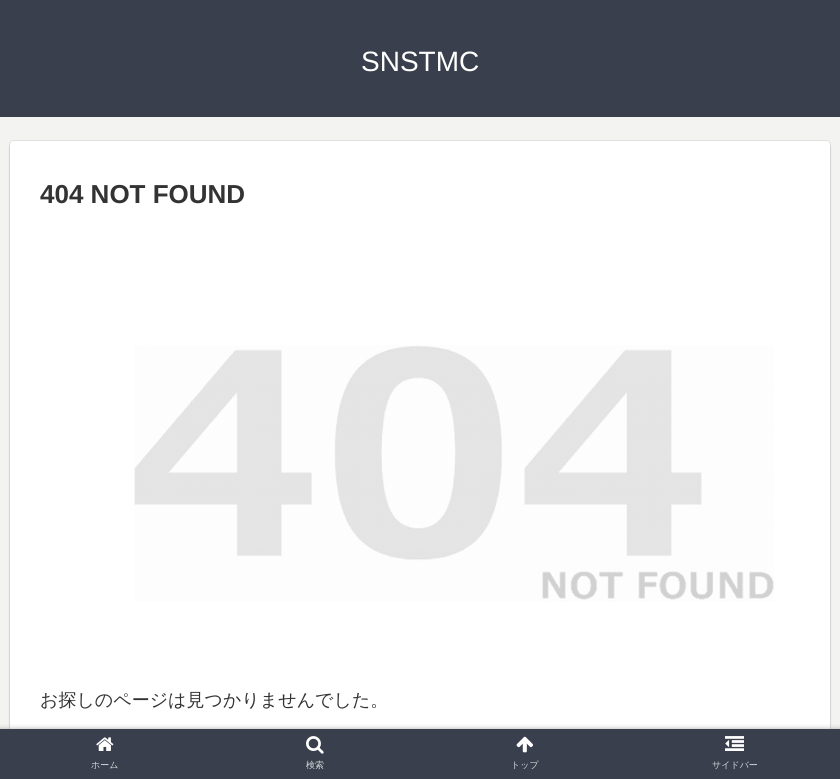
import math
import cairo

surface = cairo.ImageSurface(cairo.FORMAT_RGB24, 840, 779)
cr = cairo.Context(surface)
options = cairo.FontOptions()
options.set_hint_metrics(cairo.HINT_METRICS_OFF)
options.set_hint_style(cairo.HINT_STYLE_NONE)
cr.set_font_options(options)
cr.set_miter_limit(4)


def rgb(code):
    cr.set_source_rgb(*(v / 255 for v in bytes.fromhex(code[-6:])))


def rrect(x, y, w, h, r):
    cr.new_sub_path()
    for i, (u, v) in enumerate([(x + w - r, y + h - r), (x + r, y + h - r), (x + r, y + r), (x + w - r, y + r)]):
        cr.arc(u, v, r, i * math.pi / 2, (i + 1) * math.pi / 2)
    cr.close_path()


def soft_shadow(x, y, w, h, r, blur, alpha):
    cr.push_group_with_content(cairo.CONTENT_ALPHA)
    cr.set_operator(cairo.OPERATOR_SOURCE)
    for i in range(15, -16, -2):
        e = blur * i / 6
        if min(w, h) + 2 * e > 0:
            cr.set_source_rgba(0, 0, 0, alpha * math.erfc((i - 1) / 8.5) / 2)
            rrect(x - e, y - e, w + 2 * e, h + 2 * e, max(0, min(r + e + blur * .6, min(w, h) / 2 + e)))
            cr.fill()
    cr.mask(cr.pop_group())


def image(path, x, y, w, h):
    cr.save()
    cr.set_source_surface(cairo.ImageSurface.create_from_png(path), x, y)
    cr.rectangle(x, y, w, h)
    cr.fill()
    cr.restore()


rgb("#f3f3f2")
cr.paint()
rgb("#393f4c")
cr.rectangle(0, 0, 840, 117)
cr.fill()
rrect(9.5, 140.5, 821, 630, 4.5)
rgb("#e0e0df")
cr.set_line_width(1)
cr.stroke()
rgb("#000000")
soft_shadow(10, 143, 820, 629, 4, 1, 0.16)
rgb("#ffffff")
rrect(10, 141, 820, 629, 4)
cr.fill()
image("img/1.png", 134, 345, 640, 257)
rgb("#a9a9a9")
soft_shadow(0, 729, 840, 50, 0, 2.5, 1)
rgb("#393f4c")
cr.rectangle(0, 729, 840, 50)
cr.fill()
image("img/2.png", 96, 737, 18, 14)
image("img/3.png", 306, 736, 18, 18)
image("img/4.png", 516, 736, 17, 17)
image("img/5.png", 725, 736, 19, 15)
cr.select_font_face("Liberation Sans")
cr.set_font_size(28)
rgb("#ffffff")
cr.move_to(361, 71)
cr.show_text("SNSTMC")
cr.select_font_face("Liberation Sans", cairo.FONT_SLANT_NORMAL, cairo.FONT_WEIGHT_BOLD)
cr.set_font_size(26)
rgb("#333333")
cr.move_to(40, 203)
cr.show_text("404 NOT FOUND")
cr.select_font_face("WenQuanYi Zen Hei Medium")
cr.set_font_size(18)
cr.move_to(40, 706)
cr.show_text("お探しのページは見つかりませんでした。")
cr.set_font_size(9)
rgb("#d7d9db")
for x, y, s in [
    (91, 768, "ホーム"),
    (306, 768, "検索"),
    (511, 768, "トップ"),
    (712, 768, "サイドバー"),
]:
    cr.move_to(x, y)
    cr.show_text(s)
surface.write_to_png("page.png")
